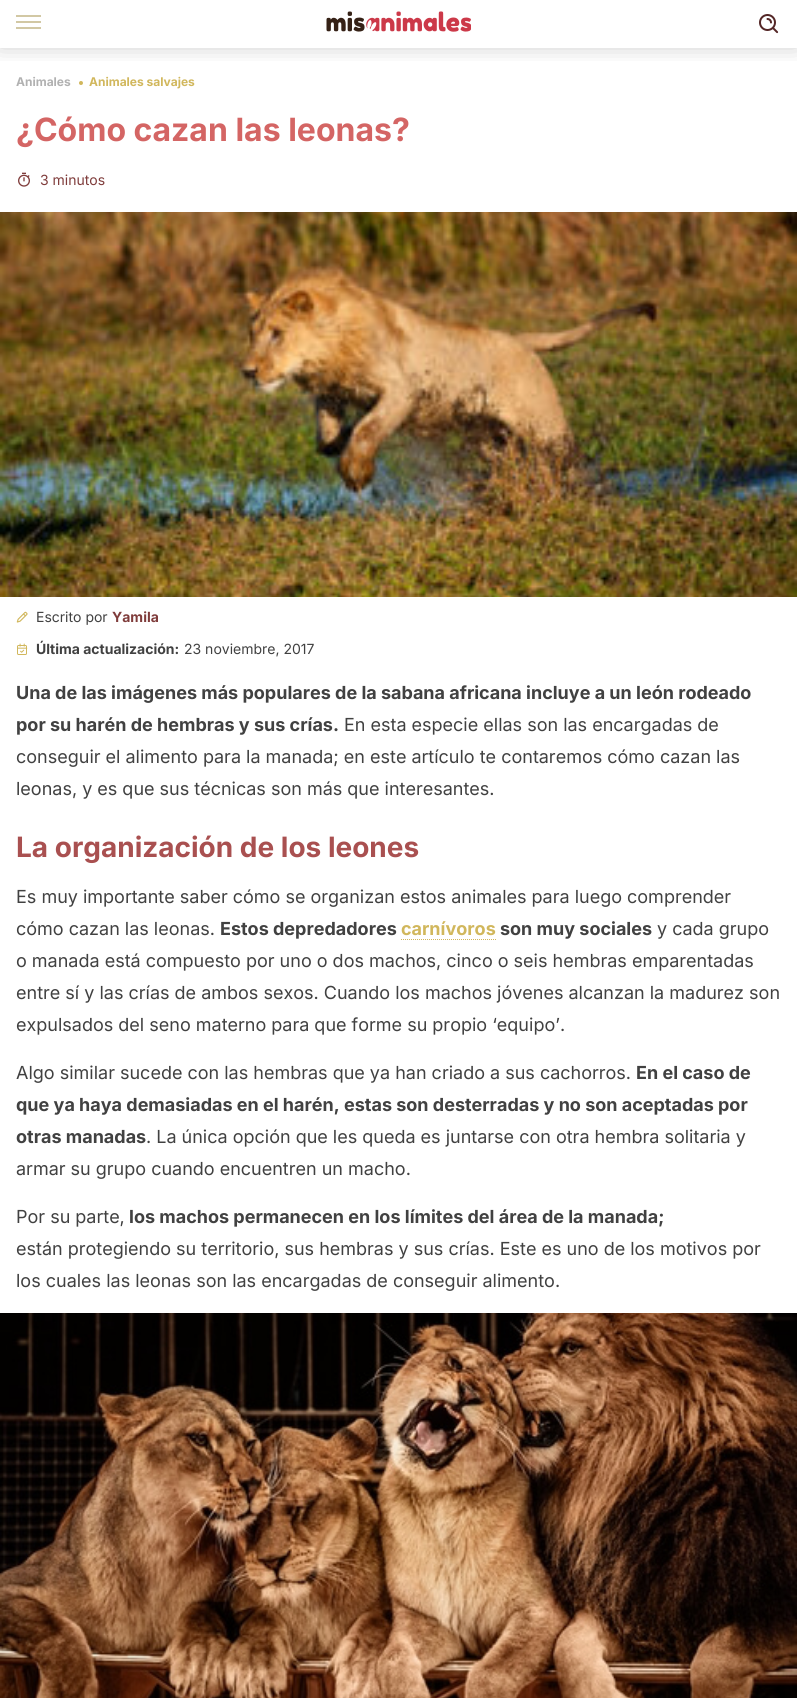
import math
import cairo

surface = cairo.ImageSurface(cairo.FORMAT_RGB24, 797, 1708)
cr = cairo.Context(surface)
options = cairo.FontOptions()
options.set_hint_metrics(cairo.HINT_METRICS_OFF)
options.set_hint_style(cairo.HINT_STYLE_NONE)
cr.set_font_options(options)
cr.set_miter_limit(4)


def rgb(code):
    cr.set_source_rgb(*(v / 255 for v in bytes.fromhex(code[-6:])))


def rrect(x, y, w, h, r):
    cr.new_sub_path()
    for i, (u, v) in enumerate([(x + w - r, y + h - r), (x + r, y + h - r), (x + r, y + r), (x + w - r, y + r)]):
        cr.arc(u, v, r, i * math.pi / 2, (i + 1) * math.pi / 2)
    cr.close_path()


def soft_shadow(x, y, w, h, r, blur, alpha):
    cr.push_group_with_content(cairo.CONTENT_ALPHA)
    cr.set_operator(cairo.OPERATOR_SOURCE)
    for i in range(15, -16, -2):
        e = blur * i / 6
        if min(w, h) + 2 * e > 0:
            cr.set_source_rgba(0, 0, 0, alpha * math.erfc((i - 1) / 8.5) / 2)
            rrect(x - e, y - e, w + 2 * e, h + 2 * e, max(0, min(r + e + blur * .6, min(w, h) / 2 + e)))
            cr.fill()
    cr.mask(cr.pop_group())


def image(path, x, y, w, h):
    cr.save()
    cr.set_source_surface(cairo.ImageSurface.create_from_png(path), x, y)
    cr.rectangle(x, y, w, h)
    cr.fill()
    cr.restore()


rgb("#ffffff")
cr.paint()
cr.save()
cr.rectangle(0, 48, 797, 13)
cr.clip()
rgb("#000000")
soft_shadow(0, -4, 797, 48, 0, 12, 0.25)
cr.restore()
for x, y, w, h, color in [
    (16, 15, 25, 2, "#d2c8a4"),
    (16, 21, 25, 2, "#d2c8a4"),
    (16, 27, 25, 2, "#d2c8a4"),
]:
    rgb(color)
    cr.rectangle(x, y, w, h)
    cr.fill()
image("img/1.png", 326, 11, 145, 21)
image("img/2.png", 759, 14, 20, 20)
rgb("#d1b75c")
cr.arc(81, 83, 2, 0, 2 * math.pi)
cr.fill()
image("img/3.png", 18, 172, 12, 15)
image("img/4.png", 0, 212, 797, 385)
image("img/5.png", 16, 611, 12, 12)
image("img/6.png", 17, 643, 11, 12)
cr.new_path()
cr.move_to(401, 939.5)
cr.line_to(496, 939.5)
cr.set_line_width(1)
cr.set_dash([1, 1])
cr.stroke()
image("img/7.png", 0, 1313, 797, 385)
cr.select_font_face("Inter", cairo.FONT_SLANT_NORMAL, cairo.FONT_WEIGHT_BOLD)
cr.set_font_size(12)
rgb("#b1b1b1")
cr.move_to(16, 86)
cr.show_text("Animales")
rgb("#d1b75c")
cr.move_to(89, 86)
cr.show_text("Animales salvajes")
cr.set_font_size(32)
rgb("#d46564")
cr.move_to(16, 141)
cr.show_text("¿Cómo cazan las leonas?")
cr.select_font_face("Inter")
cr.set_font_size(14)
rgb("#7f3c3b")
cr.move_to(40, 185)
cr.show_text("3 minutos")
rgb("#414141")
cr.move_to(36, 622)
cr.show_text("Escrito por")
cr.select_font_face("Inter", cairo.FONT_SLANT_NORMAL, cairo.FONT_WEIGHT_BOLD)
rgb("#7f3c3b")
cr.move_to(112, 622)
cr.show_text("Yamila")
rgb("#414141")
cr.move_to(36, 654)
cr.show_text("Última actualización:")
cr.select_font_face("Inter")
cr.move_to(184, 654)
cr.show_text("23 noviembre, 2017")
cr.select_font_face("Inter", cairo.FONT_SLANT_NORMAL, cairo.FONT_WEIGHT_BOLD)
cr.set_font_size(18)
cr.move_to(16, 699)
cr.show_text("Una de las imágenes más populares de la sabana africana incluye a un león rodeado")
cr.move_to(16, 731)
cr.show_text("por su harén de hembras y sus crías.")
cr.select_font_face("Inter")
for x, y, s in [
    (344, 731, "En esta especie ellas son las encargadas de"),
    (16, 763, "conseguir el alimento para la manada; en este artículo te contaremos cómo cazan las"),
    (16, 795, "leonas, y es que sus técnicas son más que interesantes."),
]:
    cr.move_to(x, y)
    cr.show_text(s)
cr.select_font_face("Inter", cairo.FONT_SLANT_NORMAL, cairo.FONT_WEIGHT_BOLD)
cr.set_font_size(28)
rgb("#a95050")
cr.move_to(16, 857)
cr.show_text("La organización de los leones")
cr.select_font_face("Inter")
cr.set_font_size(18)
rgb("#414141")
cr.move_to(16, 903)
cr.show_text("Es muy importante saber cómo se organizan estos animales para luego comprender")
cr.move_to(16, 935)
cr.show_text("cómo cazan las leonas.")
cr.select_font_face("Inter", cairo.FONT_SLANT_NORMAL, cairo.FONT_WEIGHT_BOLD)
cr.move_to(220, 935)
cr.show_text("Estos depredadores")
rgb("#d1b75c")
cr.move_to(401, 935)
cr.show_text("carnívoros")
rgb("#414141")
cr.move_to(500, 935)
cr.show_text("son muy sociales")
cr.select_font_face("Inter")
for x, y, s in [
    (657, 935, "y cada grupo"),
    (16, 967, "o manada está compuesto por uno o dos machos, cinco o seis hembras emparentadas"),
    (16, 999, "entre sí y las crías de ambos sexos. Cuando los machos jóvenes alcanzan la madurez son"),
    (16, 1031, "expulsados del seno materno para que forme su propio ‘equipo’."),
    (16, 1079, "Algo similar sucede con las hembras que ya han criado a sus cachorros."),
]:
    cr.move_to(x, y)
    cr.show_text(s)
cr.select_font_face("Inter", cairo.FONT_SLANT_NORMAL, cairo.FONT_WEIGHT_BOLD)
for x, y, s in [
    (636, 1079, "En el caso de"),
    (16, 1111, "que ya haya demasiadas en el harén, estas son desterradas y no son aceptadas por"),
    (16, 1143, "otras manadas"),
]:
    cr.move_to(x, y)
    cr.show_text(s)
cr.select_font_face("Inter")
for x, y, s in [
    (146, 1143, ". La única opción que les queda es juntarse con otra hembra solitaria y"),
    (16, 1175, "armar su grupo cuando encuentren un macho."),
    (16, 1223, "Por su parte,"),
]:
    cr.move_to(x, y)
    cr.show_text(s)
cr.select_font_face("Inter", cairo.FONT_SLANT_NORMAL, cairo.FONT_WEIGHT_BOLD)
cr.move_to(129, 1223)
cr.show_text("los machos permanecen en los límites del área de la manada;")
cr.select_font_face("Inter")
cr.move_to(16, 1255)
cr.show_text("están protegiendo su territorio, sus hembras y sus crías. Este es uno de los motivos por")
cr.move_to(16, 1287)
cr.show_text("los cuales las leonas son las encargadas de conseguir alimento.")
surface.write_to_png("page.png")
